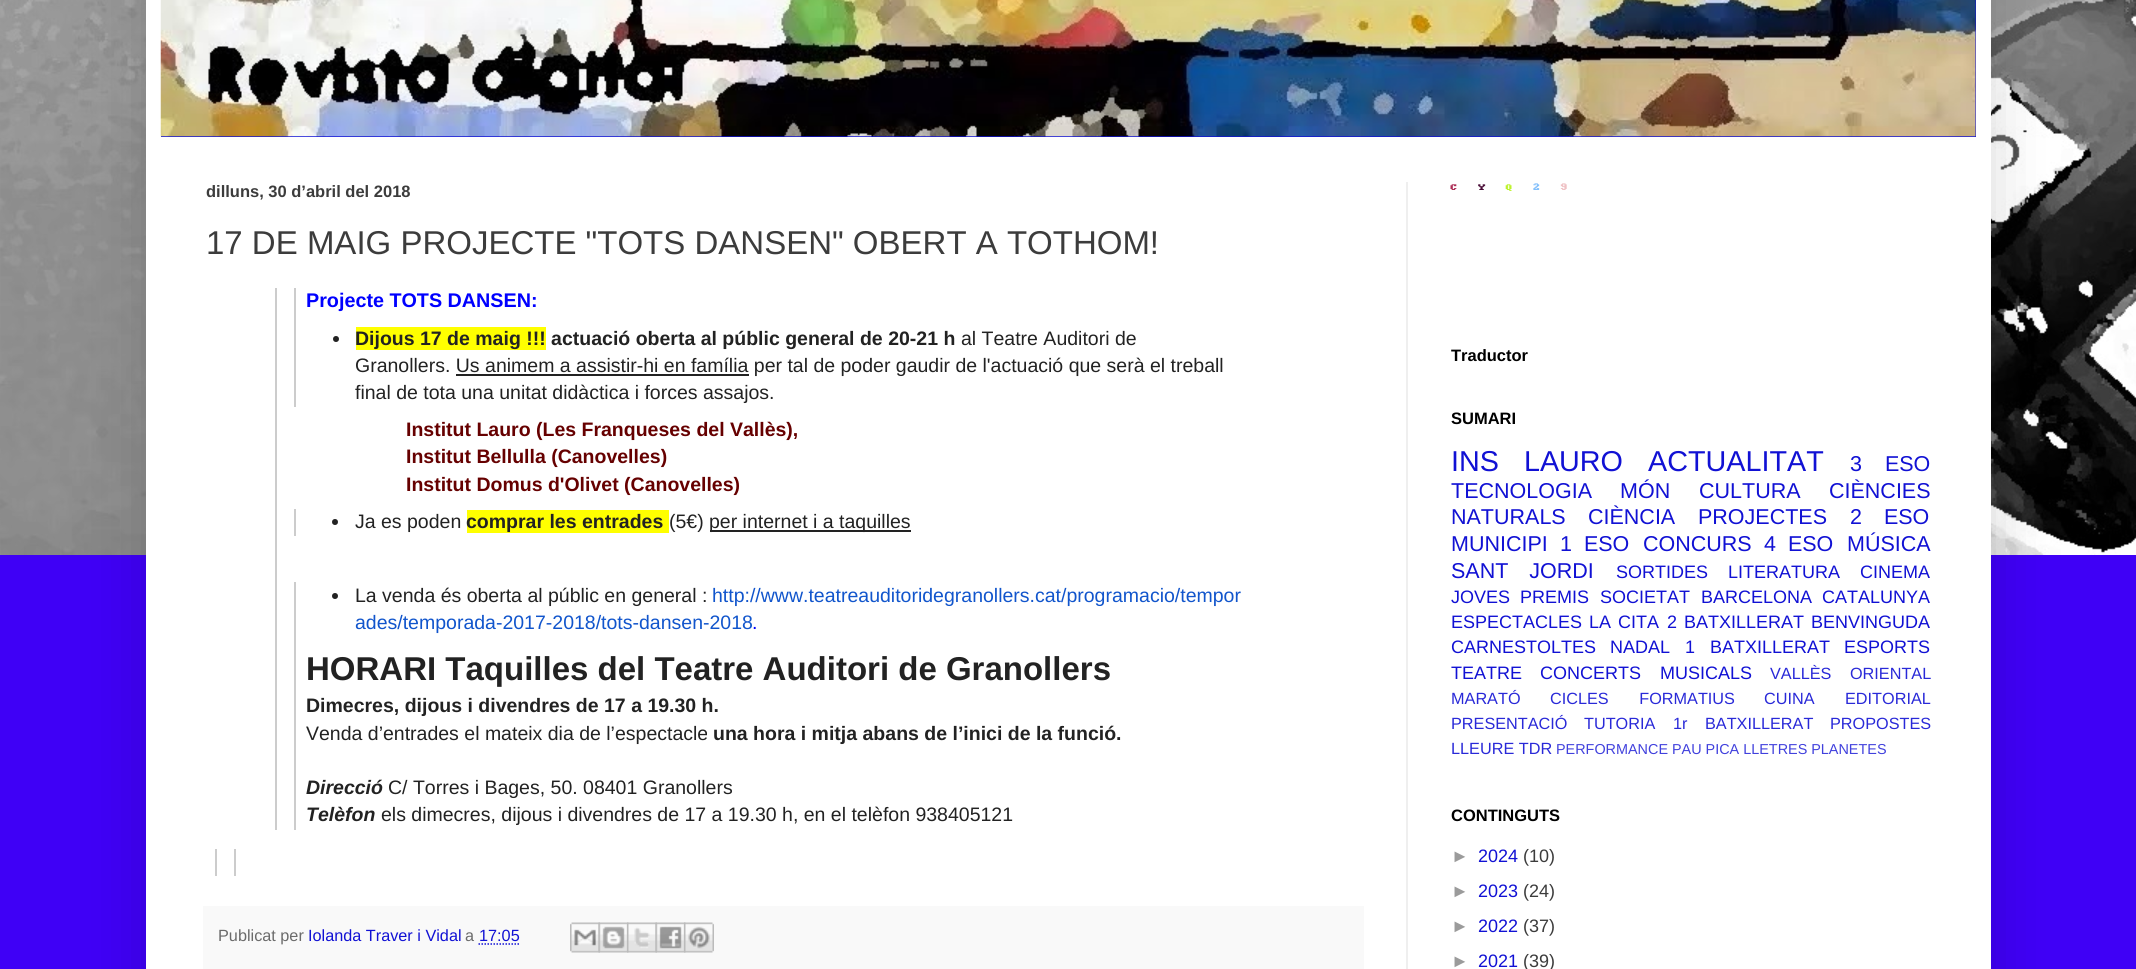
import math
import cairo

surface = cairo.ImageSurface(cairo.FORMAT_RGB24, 2136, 969)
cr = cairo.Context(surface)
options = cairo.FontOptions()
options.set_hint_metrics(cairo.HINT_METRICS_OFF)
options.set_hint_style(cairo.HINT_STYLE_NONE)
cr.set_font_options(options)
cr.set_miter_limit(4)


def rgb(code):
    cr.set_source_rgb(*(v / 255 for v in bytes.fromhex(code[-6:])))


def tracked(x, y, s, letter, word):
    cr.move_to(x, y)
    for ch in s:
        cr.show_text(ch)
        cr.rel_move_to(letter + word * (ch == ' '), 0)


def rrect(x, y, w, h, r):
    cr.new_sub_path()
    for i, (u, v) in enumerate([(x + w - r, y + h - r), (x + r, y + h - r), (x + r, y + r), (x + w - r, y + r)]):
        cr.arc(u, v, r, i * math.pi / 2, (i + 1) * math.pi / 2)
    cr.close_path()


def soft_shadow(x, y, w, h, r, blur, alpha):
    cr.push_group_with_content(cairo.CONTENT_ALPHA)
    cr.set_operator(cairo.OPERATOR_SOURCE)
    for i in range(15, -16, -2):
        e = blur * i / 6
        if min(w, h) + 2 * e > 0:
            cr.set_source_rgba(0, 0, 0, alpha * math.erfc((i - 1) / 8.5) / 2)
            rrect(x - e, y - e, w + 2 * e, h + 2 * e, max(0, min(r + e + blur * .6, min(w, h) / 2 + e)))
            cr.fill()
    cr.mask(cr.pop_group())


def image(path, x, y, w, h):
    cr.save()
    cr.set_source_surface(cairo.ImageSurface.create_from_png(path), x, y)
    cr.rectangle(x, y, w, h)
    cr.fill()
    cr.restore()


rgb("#3f00f6")
cr.paint()
image("img/1.png", 0, 0, 2136, 555)
rgb("#000000")
soft_shadow(146, -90, 1845, 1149, 0, 30, 0.15)
rgb("#ffffff")
cr.rectangle(146, 0, 1845, 969)
cr.fill()
rgb("#1111d4")
cr.rectangle(161, 0, 1815, 137)
cr.fill()
image("img/2.png", 160, 0, 1816, 137)
for x, y, w, h, color in [
    (1406, 182, 2, 787, "#efefef"),
    (275, 288, 2, 542, "#cccccc"),
    (294, 288, 2, 119, "#cccccc"),
]:
    rgb(color)
    cr.rectangle(x, y, w, h)
    cr.fill()
rgb("#222222")
cr.arc(336, 339, 3, 0, 2 * math.pi)
cr.fill()
for x, y, w, h, color in [
    (356, 327, 190, 23, "#ffff00"),
    (456, 374, 293, 2, "#222222"),
    (294, 509, 2, 27, "#cccccc"),
]:
    rgb(color)
    cr.rectangle(x, y, w, h)
    cr.fill()
rgb("#222222")
cr.arc(335, 522, 3, 0, 2 * math.pi)
cr.fill()
for x, y, w, h, color in [
    (467, 510, 202, 23, "#ffff00"),
    (710, 530, 201, 2, "#222222"),
    (294, 582, 2, 248, "#cccccc"),
]:
    rgb(color)
    cr.rectangle(x, y, w, h)
    cr.fill()
rgb("#222222")
cr.arc(335, 596, 3, 0, 2 * math.pi)
cr.fill()
for x, y, w, h, color in [
    (215, 849, 2, 27, "#cccccc"),
    (234, 849, 2, 27, "#cccccc"),
    (203, 906, 1161, 63, "#f9f9f9"),
]:
    rgb(color)
    cr.rectangle(x, y, w, h)
    cr.fill()
cr.new_path()
cr.move_to(478.5, 944)
cr.line_to(519, 944)
rgb("#1111d4")
cr.set_line_width(1.5)
cr.set_dash([1.5, 1.5])
cr.stroke()
image("img/3.png", 570, 922, 30, 31)
image("img/4.png", 598, 922, 31, 31)
image("img/5.png", 627, 922, 30, 31)
image("img/6.png", 655, 922, 31, 31)
image("img/7.png", 684, 922, 30, 31)
image("img/8.png", 1450, 183, 117, 8)
cr.select_font_face("Liberation Sans", cairo.FONT_SLANT_NORMAL, cairo.FONT_WEIGHT_BOLD)
cr.set_font_size(16.5)
rgb("#3c3c3c")
cr.move_to(206, 197)
cr.show_text("dilluns, 30 d’abril del 2018")
cr.select_font_face("Liberation Sans")
cr.set_font_size(33)
cr.move_to(206, 254)
cr.show_text("17 DE MAIG PROJECTE \"TOTS DANSEN\" OBERT A TOTHOM!")
cr.select_font_face("Liberation Sans", cairo.FONT_SLANT_NORMAL, cairo.FONT_WEIGHT_BOLD)
cr.set_font_size(19.75)
rgb("#0000ff")
cr.move_to(306, 307)
cr.show_text("Projecte TOTS DANSEN:")
cr.set_font_size(19.5)
rgb("#222222")
cr.move_to(355, 345)
cr.show_text("Dijous 17 de maig !!! actuació oberta al públic general de 20-21 h")
cr.select_font_face("Liberation Sans")
for x, y, s in [
    (961, 345, "al Teatre Auditori de"),
    (355, 372, "Granollers. Us animem a assistir-hi en família per tal de poder gaudir de l'actuació que serà el treball"),
    (355, 399, "final de tota una unitat didàctica i forces assajos."),
]:
    cr.move_to(x, y)
    cr.show_text(s)
cr.select_font_face("Liberation Sans", cairo.FONT_SLANT_NORMAL, cairo.FONT_WEIGHT_BOLD)
rgb("#660000")
for x, y, s in [
    (406, 436, "Institut Lauro (Les Franqueses del Vallès),"),
    (406, 463, "Institut Bellulla (Canovelles)"),
    (406, 491, "Institut Domus d'Olivet (Canovelles)"),
]:
    cr.move_to(x, y)
    cr.show_text(s)
cr.select_font_face("Liberation Sans")
rgb("#222222")
cr.move_to(355, 528)
cr.show_text("Ja es poden")
cr.select_font_face("Liberation Sans", cairo.FONT_SLANT_NORMAL, cairo.FONT_WEIGHT_BOLD)
cr.move_to(466, 528)
cr.show_text("comprar les entrades")
cr.select_font_face("Liberation Sans")
for x, y, s in [
    (669, 528, "(5€)"),
    (709, 528, "per internet i a taquilles"),
    (355, 602, "La venda és oberta al públic en general :"),
]:
    cr.move_to(x, y)
    cr.show_text(s)
rgb("#1155cc")
cr.move_to(712, 602)
cr.show_text("http://www.teatreauditoridegranollers.cat/programacio/tempor")
cr.move_to(355, 629)
cr.show_text("ades/temporada-2017-2018/tots-dansen-2018")
rgb("#0000ff")
cr.move_to(752, 629)
cr.show_text(".")
cr.select_font_face("Liberation Sans", cairo.FONT_SLANT_NORMAL, cairo.FONT_WEIGHT_BOLD)
cr.set_font_size(33)
rgb("#222222")
cr.move_to(306, 680)
cr.show_text("HORARI Taquilles del Teatre Auditori de Granollers")
cr.set_font_size(19.5)
cr.move_to(306, 712)
cr.show_text("Dimecres, dijous i divendres de 17 a 19.30 h.")
cr.select_font_face("Liberation Sans")
cr.move_to(306, 740)
cr.show_text("Venda d’entrades el mateix dia de l’espectacle")
cr.select_font_face("Liberation Sans", cairo.FONT_SLANT_NORMAL, cairo.FONT_WEIGHT_BOLD)
cr.move_to(713, 740)
cr.show_text("una hora i mitja abans de l’inici de la funció.")
cr.select_font_face("Liberation Sans", cairo.FONT_SLANT_ITALIC, cairo.FONT_WEIGHT_BOLD)
cr.move_to(306, 794)
cr.show_text("Direcció")
cr.select_font_face("Liberation Sans")
cr.move_to(388, 794)
cr.show_text("C/ Torres i Bages, 50. 08401 Granollers")
cr.select_font_face("Liberation Sans", cairo.FONT_SLANT_ITALIC, cairo.FONT_WEIGHT_BOLD)
cr.move_to(306, 821)
cr.show_text("Telèfon")
cr.select_font_face("Liberation Sans")
cr.move_to(381, 821)
cr.show_text("els dimecres, dijous i divendres de 17 a 19.30 h, en el telèfon 938405121")
cr.set_font_size(16.25)
rgb("#6b6b6b")
cr.move_to(218, 941)
cr.show_text("Publicat per")
rgb("#1111d4")
cr.move_to(308, 941)
cr.show_text("Iolanda Traver i Vidal")
rgb("#6b6b6b")
cr.move_to(465, 941)
cr.show_text("a")
rgb("#1111d4")
cr.move_to(479, 941)
cr.show_text("17:05")
cr.select_font_face("Liberation Sans", cairo.FONT_SLANT_NORMAL, cairo.FONT_WEIGHT_BOLD)
cr.set_font_size(16.5)
rgb("#000000")
cr.move_to(1451, 361)
cr.show_text("Traductor")
cr.move_to(1451, 424)
cr.show_text("SUMARI")
cr.select_font_face("Liberation Sans")
cr.set_font_size(28.75)
rgb("#1111d4")
tracked(1451, 471, "INS LAURO", 0, 17)
cr.move_to(1648, 471)
cr.show_text("ACTUALITAT")
cr.set_font_size(21.5)
tracked(1850, 471, "3 ESO", 0, 17)
for x, y, s in [
    (1451, 498, "TECNOLOGIA"),
    (1620, 498, "MÓN"),
    (1699, 498, "CULTURA"),
    (1829, 498, "CIÈNCIES"),
    (1451, 524, "NATURALS"),
    (1588, 524, "CIÈNCIA"),
    (1698, 524, "PROJECTES"),
]:
    cr.move_to(x, y)
    cr.show_text(s)
tracked(1850, 524, "2 ESO", 0, 16)
cr.move_to(1451, 551)
cr.show_text("MUNICIPI")
tracked(1560, 551, "1 ESO", 0, 6)
cr.move_to(1643, 551)
cr.show_text("CONCURS")
tracked(1764, 551, "4 ESO", 0, 6)
cr.move_to(1847, 551)
cr.show_text("MÚSICA")
tracked(1451, 578, "SANT JORDI", 0, 15)
cr.set_font_size(18)
for x, y, s in [
    (1616, 578, "SORTIDES"),
    (1728, 578, "LITERATURA"),
    (1860, 578, "CINEMA"),
    (1451, 603, "JOVES"),
    (1520, 603, "PREMIS"),
    (1600, 603, "SOCIETAT"),
    (1701, 603, "BARCELONA"),
    (1822, 603, "CATALUNYA"),
    (1451, 628, "ESPECTACLES"),
]:
    cr.move_to(x, y)
    cr.show_text(s)
tracked(1589, 628, "LA CITA", 0, 2)
tracked(1667, 628, "2 BATXILLERAT", 0, 2)
for x, y, s in [
    (1811, 628, "BENVINGUDA"),
    (1451, 653, "CARNESTOLTES"),
    (1610, 653, "NADAL"),
]:
    cr.move_to(x, y)
    cr.show_text(s)
tracked(1685, 653, "1 BATXILLERAT", 0, 10)
cr.move_to(1844, 653)
cr.show_text("ESPORTS")
cr.move_to(1451, 679)
cr.show_text("TEATRE")
tracked(1540, 679, "CONCERTS MUSICALS", 0, 14)
cr.set_font_size(16.25)
rgb("#2929d8")
tracked(1770, 679, "VALLÈS ORIENTAL", 0, 14)
cr.move_to(1451, 704)
cr.show_text("MARATÓ")
tracked(1550, 704, "CICLES FORMATIUS", 0, 26)
for x, y, s in [
    (1764, 704, "CUINA"),
    (1845, 704, "EDITORIAL"),
    (1451, 729, "PRESENTACIÓ"),
    (1584, 729, "TUTORIA"),
]:
    cr.move_to(x, y)
    cr.show_text(s)
tracked(1673, 729, "1r BATXILLERAT", 0, 13)
cr.move_to(1830, 729)
cr.show_text("PROPOSTES")
cr.move_to(1451, 754)
cr.show_text("LLEURE TDR")
cr.set_font_size(14.4)
rgb("#4141dd")
cr.move_to(1556, 754)
cr.show_text("PERFORMANCE PAU PICA LLETRES PLANETES")
cr.select_font_face("Liberation Sans", cairo.FONT_SLANT_NORMAL, cairo.FONT_WEIGHT_BOLD)
cr.set_font_size(16.5)
rgb("#000000")
cr.move_to(1451, 821)
cr.show_text("CONTINGUTS")
cr.select_font_face("Liberation Sans")
cr.set_font_size(18)
rgb("#9b9b9b")
cr.move_to(1451, 862)
cr.show_text("►")
rgb("#1111d4")
cr.move_to(1478, 862)
cr.show_text("2024")
rgb("#3c3c3c")
cr.move_to(1523, 862)
cr.show_text("(10)")
rgb("#9b9b9b")
cr.move_to(1451, 897)
cr.show_text("►")
rgb("#1111d4")
cr.move_to(1478, 897)
cr.show_text("2023")
rgb("#3c3c3c")
cr.move_to(1523, 897)
cr.show_text("(24)")
rgb("#9b9b9b")
cr.move_to(1451, 932)
cr.show_text("►")
rgb("#1111d4")
cr.move_to(1478, 932)
cr.show_text("2022")
rgb("#3c3c3c")
cr.move_to(1523, 932)
cr.show_text("(37)")
rgb("#9b9b9b")
cr.move_to(1451, 967)
cr.show_text("►")
rgb("#1111d4")
cr.move_to(1478, 967)
cr.show_text("2021")
rgb("#3c3c3c")
cr.move_to(1523, 967)
cr.show_text("(39)")
surface.write_to_png("page.png")
